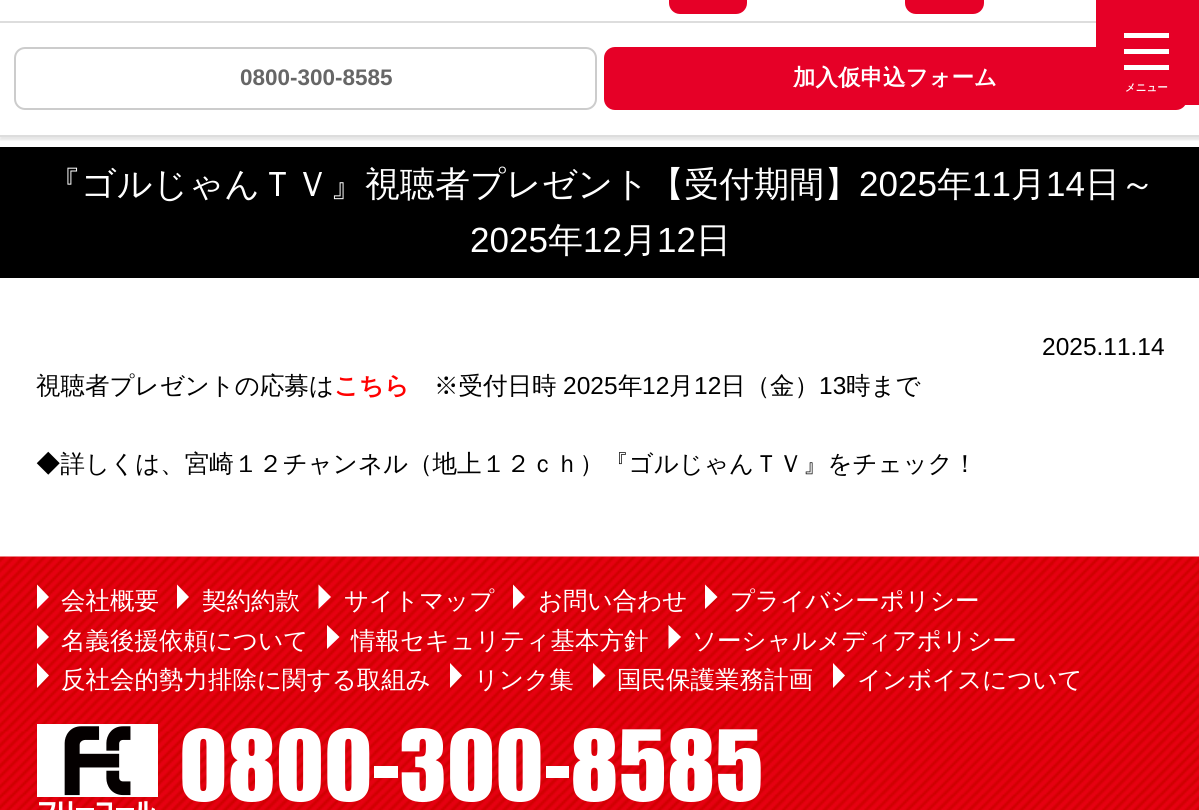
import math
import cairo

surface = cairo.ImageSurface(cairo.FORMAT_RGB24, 1199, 810)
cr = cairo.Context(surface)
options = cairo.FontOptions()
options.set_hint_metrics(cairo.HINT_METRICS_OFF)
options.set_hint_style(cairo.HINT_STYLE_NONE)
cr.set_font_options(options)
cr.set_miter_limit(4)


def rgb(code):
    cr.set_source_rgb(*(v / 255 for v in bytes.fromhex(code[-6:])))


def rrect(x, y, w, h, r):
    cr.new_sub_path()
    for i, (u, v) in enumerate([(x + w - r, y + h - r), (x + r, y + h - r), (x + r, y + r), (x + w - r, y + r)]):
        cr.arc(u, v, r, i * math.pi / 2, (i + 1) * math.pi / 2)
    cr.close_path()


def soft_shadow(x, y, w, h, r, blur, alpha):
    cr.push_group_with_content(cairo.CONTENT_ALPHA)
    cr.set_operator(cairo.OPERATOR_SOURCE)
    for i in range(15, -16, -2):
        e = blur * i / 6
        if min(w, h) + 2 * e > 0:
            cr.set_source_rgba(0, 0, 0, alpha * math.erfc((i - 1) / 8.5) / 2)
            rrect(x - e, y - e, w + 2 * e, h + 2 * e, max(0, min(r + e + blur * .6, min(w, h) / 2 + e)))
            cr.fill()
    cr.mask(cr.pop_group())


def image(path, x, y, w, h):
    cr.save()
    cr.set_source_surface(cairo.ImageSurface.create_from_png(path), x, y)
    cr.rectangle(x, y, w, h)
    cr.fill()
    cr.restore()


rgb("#ffffff")
cr.paint()
cr.save()
cr.rectangle(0, 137, 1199, 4)
cr.clip()
rgb("#000000")
soft_shadow(0, 25, 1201, 115, 0, 1, 0.1)
cr.restore()
rgb("#dddddd")
cr.rectangle(0, 21, 1096, 2)
cr.fill()
cr.rectangle(0, 135, 1199, 2)
cr.fill()
rrect(15, 48, 581, 61, 10)
rgb("#cccccc")
cr.stroke()
rgb("#e60027")
rrect(605, 48, 581, 61, 10)
cr.fill_preserve()
cr.stroke()
rrect(669, -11, 78, 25, 11)
cr.fill()
rrect(905, -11, 79, 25, 11)
cr.fill()
cr.new_path()
cr.move_to(1096, 0)
cr.line_to(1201, 0)
cr.line_to(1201, 105)
cr.line_to(1107, 105)
cr.curve_to(1101, 105, 1096, 100, 1096, 94)
cr.close_path()
cr.fill()
for x, y, w, h, color in [
    (1124, 33, 45, 5, "#ffffff"),
    (1124, 49, 45, 5, "#ffffff"),
    (1124, 65, 45, 5, "#ffffff"),
    (0, 147, 1199, 131, "#000000"),
]:
    rgb(color)
    cr.rectangle(x, y, w, h)
    cr.fill()
image("img/1.png", 0, 556, 1199, 254)
rgb("#ffffff")
cr.new_path()
cr.move_to(37, 609)
cr.line_to(37, 584.5)
cr.line_to(49, 597)
cr.close_path()
cr.fill()
cr.new_path()
cr.move_to(177, 609)
cr.line_to(177, 584.5)
cr.line_to(189, 597)
cr.close_path()
cr.fill()
cr.new_path()
cr.move_to(318.5, 609)
cr.line_to(318.5, 584.5)
cr.line_to(331, 597)
cr.close_path()
cr.fill()
cr.new_path()
cr.move_to(513, 609)
cr.line_to(513, 584.5)
cr.line_to(525, 597)
cr.close_path()
cr.fill()
cr.new_path()
cr.move_to(705, 609)
cr.line_to(705, 584.5)
cr.line_to(717.5, 597)
cr.close_path()
cr.fill()
cr.new_path()
cr.move_to(37, 649)
cr.line_to(37, 625)
cr.line_to(49, 637)
cr.close_path()
cr.fill()
cr.new_path()
cr.move_to(327, 649)
cr.line_to(327, 625)
cr.line_to(339.5, 637)
cr.close_path()
cr.fill()
cr.new_path()
cr.move_to(668.5, 649)
cr.line_to(668.5, 625)
cr.line_to(681, 637)
cr.close_path()
cr.fill()
cr.new_path()
cr.move_to(37, 688)
cr.line_to(37, 663)
cr.line_to(49, 675.5)
cr.close_path()
cr.fill()
cr.new_path()
cr.move_to(450, 688)
cr.line_to(450, 663)
cr.line_to(462, 675.5)
cr.close_path()
cr.fill()
cr.new_path()
cr.move_to(593, 688)
cr.line_to(593, 663)
cr.line_to(605.5, 675.5)
cr.close_path()
cr.fill()
cr.new_path()
cr.move_to(833, 688)
cr.line_to(833, 663)
cr.line_to(845, 675.5)
cr.close_path()
cr.fill()
image("img/2.png", 37, 724, 724, 86)
cr.select_font_face("Liberation Sans", cairo.FONT_SLANT_NORMAL, cairo.FONT_WEIGHT_BOLD)
cr.set_font_size(22.5)
rgb("#666666")
cr.move_to(240, 85)
cr.show_text("0800-300-8585")
cr.select_font_face("WenQuanYi Zen Hei", cairo.FONT_SLANT_NORMAL, cairo.FONT_WEIGHT_BOLD)
rgb("#ffffff")
cr.move_to(793, 85)
cr.show_text("加入仮申込フォーム")
cr.set_font_size(10.5)
cr.move_to(1125, 91)
cr.show_text("メニュー")
cr.select_font_face("WenQuanYi Zen Hei Medium")
cr.set_font_size(35)
cr.move_to(46, 196)
cr.show_text("『ゴルじゃんＴＶ』視聴者プレゼント【受付期間】")
cr.select_font_face("Liberation Sans")
cr.move_to(859, 196)
cr.show_text("2025")
cr.select_font_face("WenQuanYi Zen Hei Medium")
cr.move_to(937, 196)
cr.show_text("年")
cr.select_font_face("Liberation Sans")
cr.move_to(972, 196)
cr.show_text("11")
cr.select_font_face("WenQuanYi Zen Hei Medium")
cr.move_to(1011, 196)
cr.show_text("月")
cr.select_font_face("Liberation Sans")
cr.move_to(1046, 196)
cr.show_text("14")
cr.select_font_face("WenQuanYi Zen Hei Medium")
cr.move_to(1085, 196)
cr.show_text("日～")
cr.select_font_face("Liberation Sans")
cr.move_to(470, 252)
cr.show_text("2025")
cr.select_font_face("WenQuanYi Zen Hei Medium")
cr.move_to(548, 252)
cr.show_text("年")
cr.select_font_face("Liberation Sans")
cr.move_to(583, 252)
cr.show_text("12")
cr.select_font_face("WenQuanYi Zen Hei Medium")
cr.move_to(622, 252)
cr.show_text("月")
cr.select_font_face("Liberation Sans")
cr.move_to(657, 252)
cr.show_text("12")
cr.select_font_face("WenQuanYi Zen Hei Medium")
cr.move_to(696, 252)
cr.show_text("日")
cr.select_font_face("Liberation Sans")
cr.set_font_size(24.5)
rgb("#000000")
cr.move_to(1042, 355)
cr.show_text("2025.11.14")
cr.select_font_face("WenQuanYi Zen Hei Medium")
cr.move_to(36, 394)
cr.show_text("視聴者プレゼントの応募は")
cr.select_font_face("WenQuanYi Zen Hei", cairo.FONT_SLANT_NORMAL, cairo.FONT_WEIGHT_BOLD)
rgb("#ff0000")
cr.move_to(334, 394)
cr.show_text("こちら")
cr.select_font_face("WenQuanYi Zen Hei Medium")
rgb("#000000")
cr.move_to(434, 394)
cr.show_text("※受付日時")
cr.select_font_face("Liberation Sans")
cr.move_to(563, 394)
cr.show_text("2025")
cr.select_font_face("WenQuanYi Zen Hei Medium")
cr.move_to(618, 394)
cr.show_text("年")
cr.select_font_face("Liberation Sans")
cr.move_to(642, 394)
cr.show_text("12")
cr.select_font_face("WenQuanYi Zen Hei Medium")
cr.move_to(669, 394)
cr.show_text("月")
cr.select_font_face("Liberation Sans")
cr.move_to(694, 394)
cr.show_text("12")
cr.select_font_face("WenQuanYi Zen Hei Medium")
cr.move_to(721, 394)
cr.show_text("日（金）")
cr.select_font_face("Liberation Sans")
cr.move_to(819, 394)
cr.show_text("13")
cr.select_font_face("WenQuanYi Zen Hei Medium")
cr.move_to(846, 394)
cr.show_text("時まで")
cr.move_to(36, 472)
cr.show_text("◆詳しくは、宮崎１２チャンネル（地上１２ｃｈ）『ゴルじゃんＴＶ』をチェック！")
rgb("#ffffff")
for x, y, s in [
    (61, 609, "会社概要"),
    (202, 609, "契約約款"),
    (344, 609, "サイトマップ"),
    (538, 609, "お問い合わせ"),
    (730, 609, "プライバシーポリシー"),
    (61, 649, "名義後援依頼について"),
    (351, 649, "情報セキュリティ基本方針"),
    (692, 649, "ソーシャルメディアポリシー"),
    (61, 688, "反社会的勢力排除に関する取組み"),
    (474, 688, "リンク集"),
    (617, 688, "国民保護業務計画"),
    (857, 688, "インボイスについて"),
]:
    cr.move_to(x, y)
    cr.show_text(s)
surface.write_to_png("page.png")
